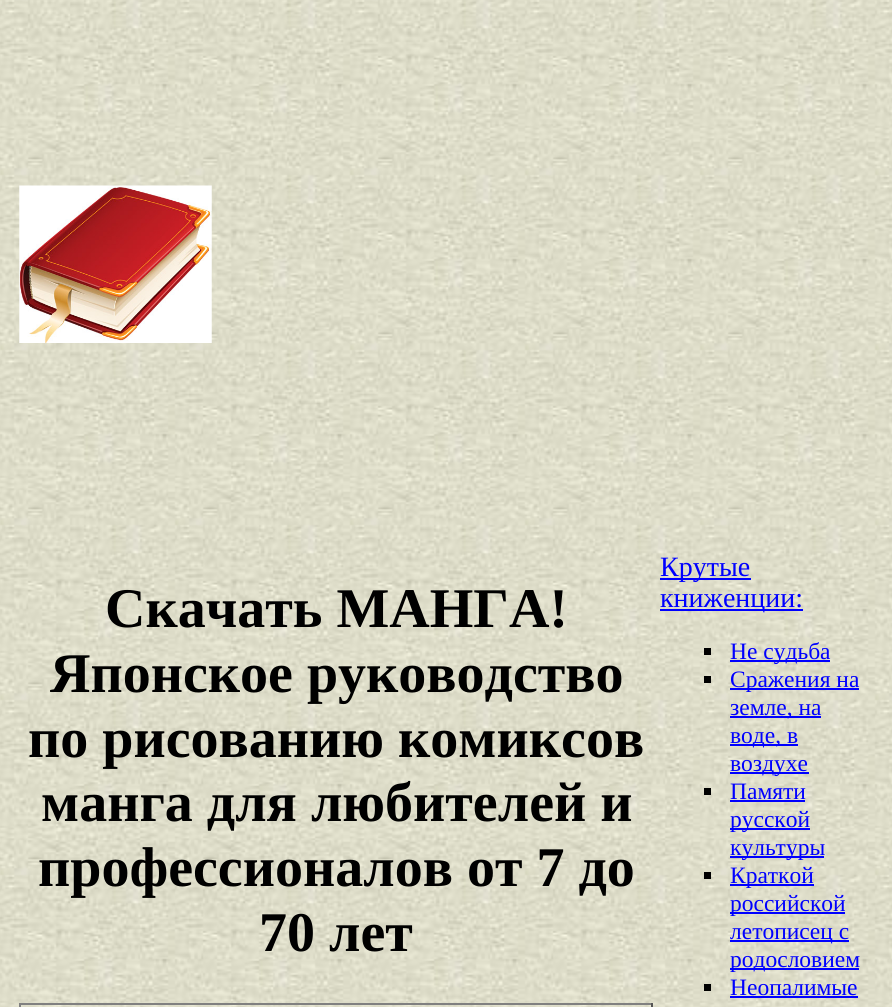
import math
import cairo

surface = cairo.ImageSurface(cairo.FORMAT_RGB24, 892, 1007)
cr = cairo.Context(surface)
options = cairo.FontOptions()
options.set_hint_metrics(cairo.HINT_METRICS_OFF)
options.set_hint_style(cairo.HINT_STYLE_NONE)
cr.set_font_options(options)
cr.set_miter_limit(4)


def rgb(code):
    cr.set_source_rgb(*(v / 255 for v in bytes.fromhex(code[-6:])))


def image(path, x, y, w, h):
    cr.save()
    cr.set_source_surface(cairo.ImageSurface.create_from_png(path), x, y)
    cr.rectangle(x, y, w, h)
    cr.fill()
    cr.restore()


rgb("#ffffff")
cr.paint()
image("img/1.png", 0, 0, 892, 1007)
image("img/2.png", 19, 185, 193, 158)
for x, y, w, h, color in [
    (19, 1003, 634, 2, "#808080"),
    (651, 1003, 2, 4, "#555555"),
    (19, 1003, 2, 4, "#808080"),
    (660, 578, 91, 2, "#0000ff"),
    (660, 609, 143, 2, "#0000ff"),
    (704, 648, 7, 7, "#000000"),
    (730, 660, 100, 2, "#0000ff"),
    (704, 676, 7, 7, "#000000"),
    (730, 688, 129, 2, "#0000ff"),
    (730, 716, 91, 2, "#0000ff"),
    (730, 744, 68, 2, "#0000ff"),
    (730, 772, 79, 2, "#0000ff"),
    (704, 788, 7, 7, "#000000"),
    (730, 800, 75, 2, "#0000ff"),
    (730, 828, 80, 2, "#0000ff"),
    (730, 856, 94, 2, "#0000ff"),
    (704, 872, 7, 7, "#000000"),
    (730, 884, 84, 2, "#0000ff"),
    (730, 912, 115, 2, "#0000ff"),
    (730, 940, 119, 2, "#0000ff"),
    (730, 968, 129, 2, "#0000ff"),
    (704, 984, 7, 7, "#000000"),
    (730, 996, 128, 2, "#0000ff"),
]:
    rgb(color)
    cr.rectangle(x, y, w, h)
    cr.fill()
cr.select_font_face("Liberation Serif", cairo.FONT_SLANT_NORMAL, cairo.FONT_WEIGHT_BOLD)
cr.set_font_size(56)
rgb("#000000")
for x, y, s in [
    (105, 627, "Скачать МАНГА!"),
    (50, 692, "Японское руководство"),
    (28, 757, "по рисованию комиксов"),
    (41, 821, "манга для любителей и"),
    (38, 886, "профессионалов от 7 до"),
    (259, 951, "70 лет"),
]:
    cr.move_to(x, y)
    cr.show_text(s)
cr.select_font_face("Liberation Serif")
cr.set_font_size(28)
rgb("#0000ff")
cr.move_to(660, 576)
cr.show_text("Крутые")
cr.move_to(660, 607)
cr.show_text("книженции:")
cr.set_font_size(23.5)
for x, y, s in [
    (730, 659, "Не судьба"),
    (730, 687, "Сражения на"),
    (730, 715, "земле, на"),
    (730, 743, "воде, в"),
    (730, 771, "воздухе"),
    (730, 799, "Памяти"),
    (730, 827, "русской"),
    (730, 855, "культуры"),
    (730, 883, "Краткой"),
    (730, 911, "российской"),
    (730, 939, "летописец с"),
    (730, 967, "родословием"),
    (730, 995, "Неопалимые"),
]:
    cr.move_to(x, y)
    cr.show_text(s)
surface.write_to_png("page.png")
